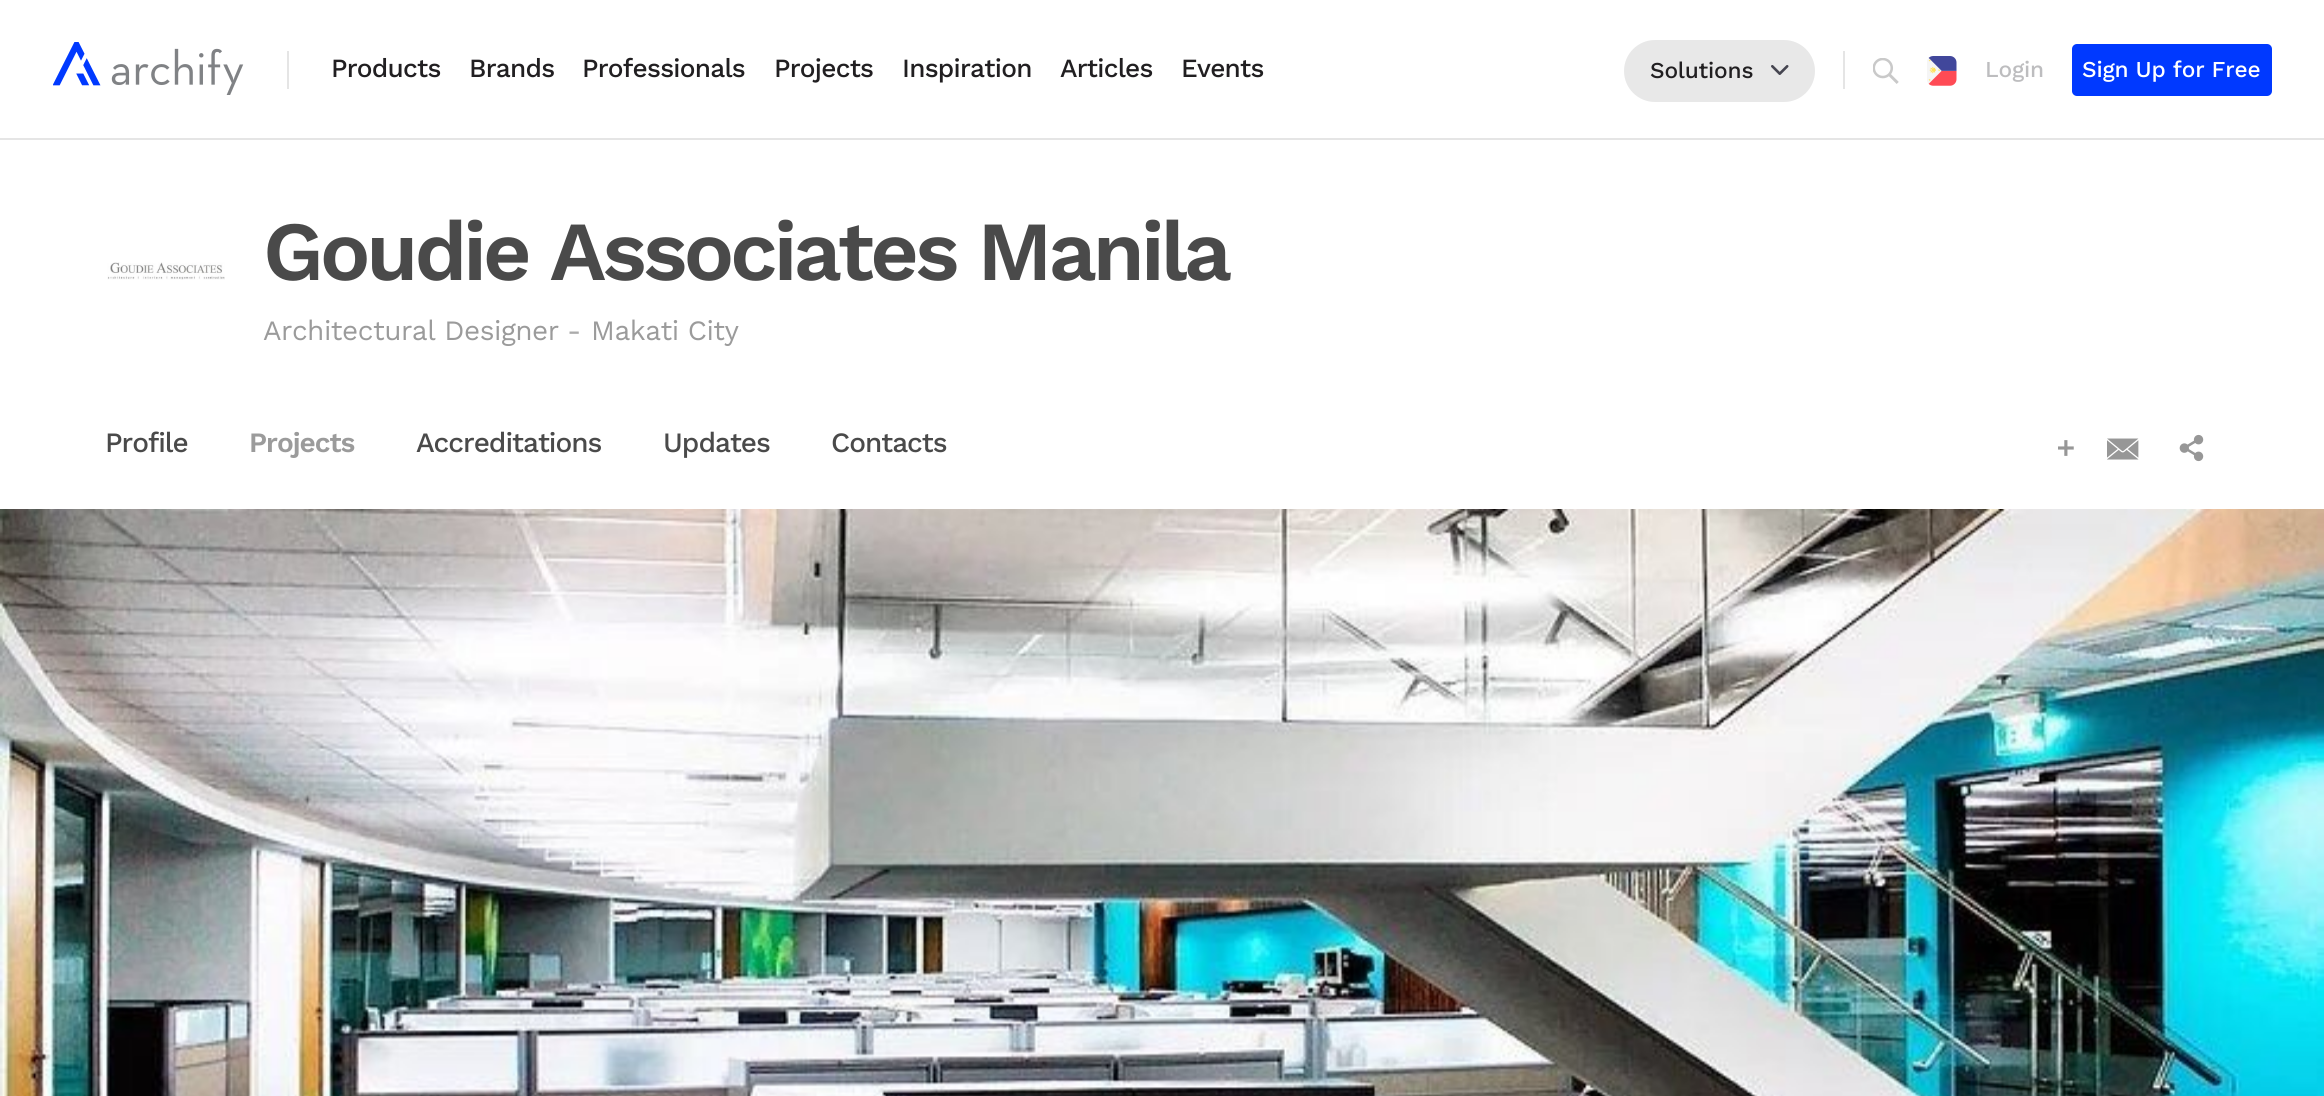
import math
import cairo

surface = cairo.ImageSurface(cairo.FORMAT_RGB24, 2324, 1096)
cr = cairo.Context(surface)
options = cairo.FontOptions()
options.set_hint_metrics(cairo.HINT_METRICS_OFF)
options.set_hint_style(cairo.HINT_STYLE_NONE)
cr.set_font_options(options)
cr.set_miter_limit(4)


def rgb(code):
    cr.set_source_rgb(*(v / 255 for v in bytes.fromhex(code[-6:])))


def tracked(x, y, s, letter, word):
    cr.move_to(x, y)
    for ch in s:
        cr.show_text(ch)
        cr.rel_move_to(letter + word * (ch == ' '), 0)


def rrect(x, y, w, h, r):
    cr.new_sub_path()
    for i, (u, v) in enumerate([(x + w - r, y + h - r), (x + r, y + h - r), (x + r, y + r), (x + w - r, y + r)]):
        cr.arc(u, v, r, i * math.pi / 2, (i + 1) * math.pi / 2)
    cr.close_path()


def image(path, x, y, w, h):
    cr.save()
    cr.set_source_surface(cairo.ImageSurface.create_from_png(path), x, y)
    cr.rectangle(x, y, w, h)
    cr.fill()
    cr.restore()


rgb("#ffffff")
cr.paint()
rgb("#e5e5e5")
cr.rectangle(0, 138, 2324, 2)
cr.fill()
cr.rectangle(287, 51, 2, 38)
cr.fill()
image("img/1.png", 53, 42, 191, 53)
cr.rectangle(1843, 51, 2, 38)
cr.fill()
rgb("#e8e8e8")
rrect(1624, 40, 191, 62, 31)
cr.fill()
image("img/2.png", 1771, 65, 18, 10)
image("img/3.png", 1873, 58, 26, 26)
image("img/4.png", 1927, 56, 30, 30)
rgb("#0039ff")
rrect(2072, 44, 200, 52, 5)
cr.fill()
image("img/5.png", 107, 262, 118, 18)
image("img/6.png", 2058, 440, 16, 16)
image("img/7.png", 2107, 438, 32, 22)
image("img/8.png", 2179, 434, 25, 28)
image("img/9.png", 0, 509, 2324, 587)
cr.select_font_face("Work Sans Medium")
cr.set_font_size(26.25)
rgb("#211f21")
for x, y, s in [
    (331, 77, "Products"),
    (469, 77, "Brands"),
    (582, 77, "Professionals"),
    (774, 77, "Projects"),
    (902, 77, "Inspiration"),
    (1060, 77, "Articles"),
    (1181, 77, "Events"),
]:
    tracked(x, y, s, -0.75, 0)
cr.set_font_size(22.75)
tracked(1650, 78, "Solutions", -0.2, 0)
rgb("#bdbdbf")
tracked(1985, 77, "Login", -0.2, 0)
rgb("#ffffff")
tracked(2082, 77, "Sign Up for Free", -0.2, 0)
cr.select_font_face("Work Sans SemiBold")
cr.set_font_size(84)
rgb("#4a4a4a")
tracked(263, 280, "Goudie Associates Manila", -3.85, 0)
cr.select_font_face("Work Sans")
cr.set_font_size(28)
rgb("#9b9b9b")
tracked(263, 340, "Architectural Designer", -0.5, 0)
rgb("#ababab")
cr.move_to(567, 340)
cr.show_text("-")
rgb("#9b9b9b")
tracked(591, 340, "Makati City", -0.5, 0)
cr.select_font_face("Work Sans Medium")
rgb("#4a4a4a")
tracked(105, 452, "Profile", -1, 0)
cr.select_font_face("Work Sans SemiBold")
rgb("#9b9b9b")
tracked(249, 452, "Projects", -1, 0)
cr.select_font_face("Work Sans Medium")
rgb("#4a4a4a")
for x, y, s in [
    (416, 452, "Accreditations"),
    (663, 452, "Updates"),
    (831, 452, "Contacts"),
]:
    tracked(x, y, s, -1, 0)
surface.write_to_png("page.png")
